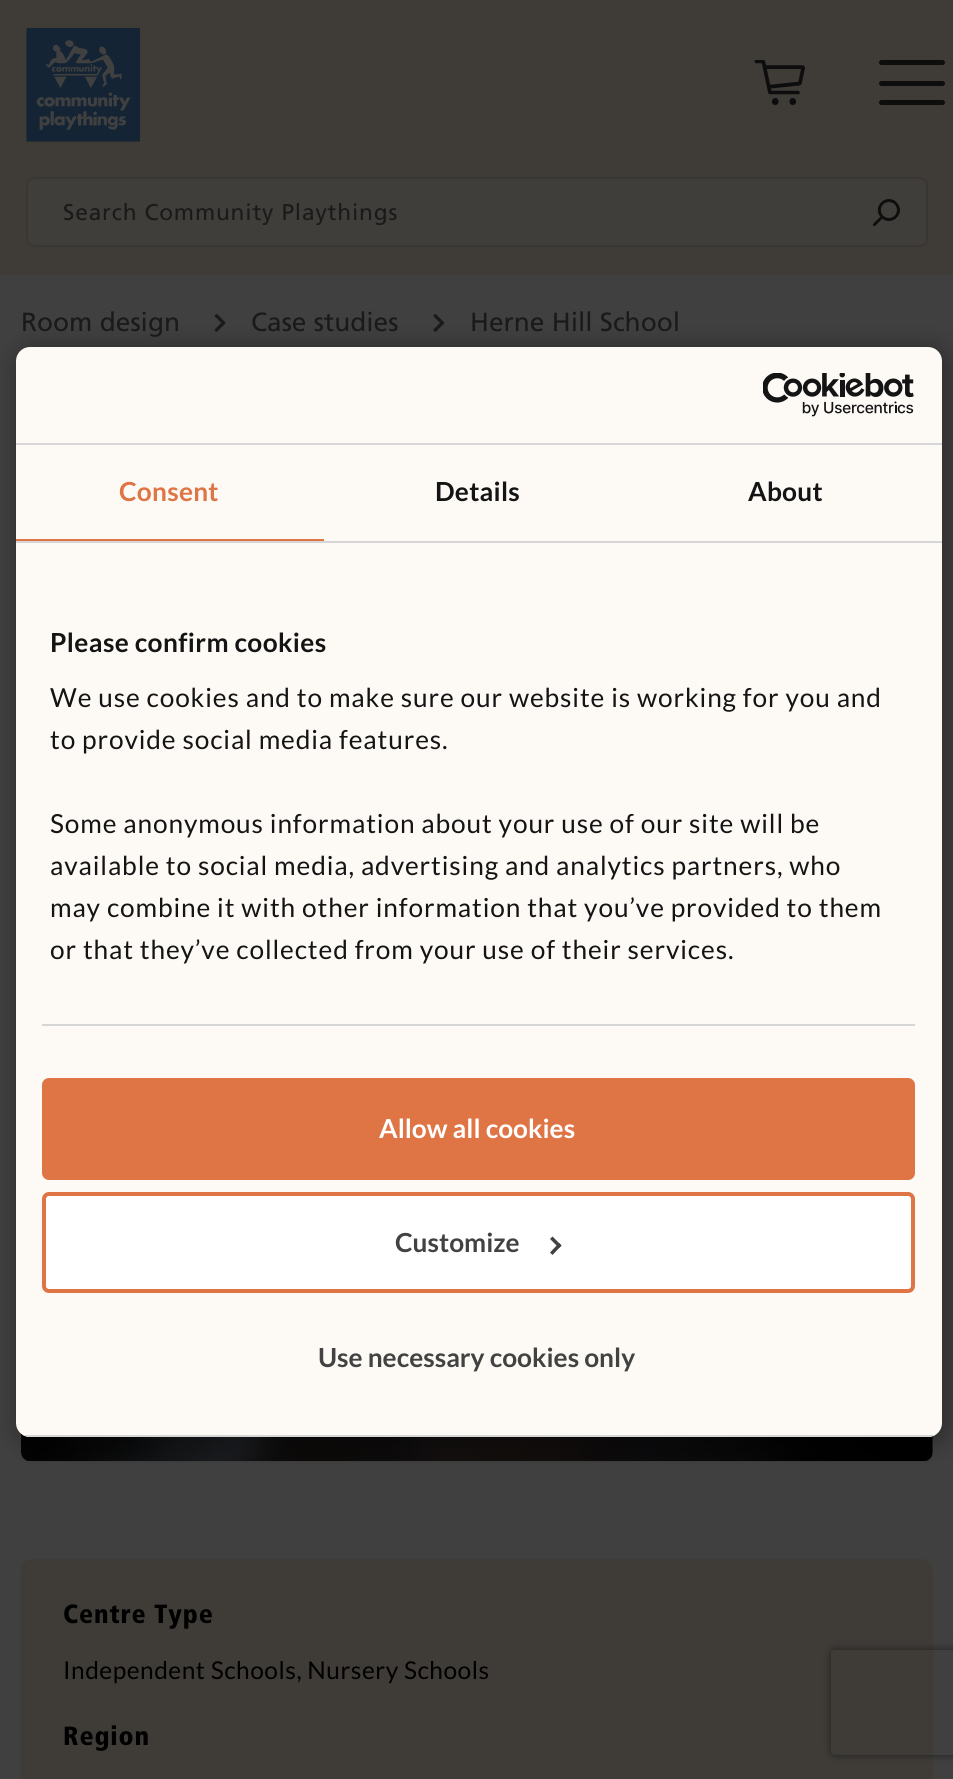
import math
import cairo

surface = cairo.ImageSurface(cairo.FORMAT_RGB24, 953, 1779)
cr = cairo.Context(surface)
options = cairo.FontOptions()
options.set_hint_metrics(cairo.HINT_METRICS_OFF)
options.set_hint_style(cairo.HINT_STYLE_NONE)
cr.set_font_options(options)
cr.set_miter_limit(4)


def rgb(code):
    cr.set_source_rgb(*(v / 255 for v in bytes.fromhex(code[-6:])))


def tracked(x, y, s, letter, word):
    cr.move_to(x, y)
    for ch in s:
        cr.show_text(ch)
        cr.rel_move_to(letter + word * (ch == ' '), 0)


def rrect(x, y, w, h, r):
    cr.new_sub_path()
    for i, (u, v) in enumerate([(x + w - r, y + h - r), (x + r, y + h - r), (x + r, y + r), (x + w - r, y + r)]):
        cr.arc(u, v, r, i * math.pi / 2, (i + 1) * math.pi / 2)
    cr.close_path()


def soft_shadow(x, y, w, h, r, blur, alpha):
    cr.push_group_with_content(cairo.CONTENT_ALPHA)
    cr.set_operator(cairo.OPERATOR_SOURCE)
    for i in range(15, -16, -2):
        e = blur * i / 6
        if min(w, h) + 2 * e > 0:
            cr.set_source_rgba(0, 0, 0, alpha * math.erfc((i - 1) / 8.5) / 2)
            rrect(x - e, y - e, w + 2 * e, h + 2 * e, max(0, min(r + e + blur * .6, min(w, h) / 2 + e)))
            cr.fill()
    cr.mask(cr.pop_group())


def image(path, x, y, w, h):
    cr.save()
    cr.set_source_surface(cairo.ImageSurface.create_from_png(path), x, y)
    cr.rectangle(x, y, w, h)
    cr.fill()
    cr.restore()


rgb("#404040")
cr.paint()
rgb("#3f3c38")
cr.rectangle(0, 0, 953, 275)
cr.fill()
image("img/1.png", 26, 28, 114, 114)
image("img/2.png", 754, 60, 51, 45)
rgb("#0d0d0d")
rrect(879, 60, 66, 5, 2.5)
cr.fill()
rrect(908, 81, 37, 5, 2.5)
cr.fill()
rrect(879, 81, 36, 5, 2.5)
cr.fill()
rrect(879, 100, 66, 5, 2.5)
cr.fill()
rgb("#3f3e3b")
rrect(27, 178, 900, 68, 8)
cr.fill_preserve()
rgb("#3a3633")
cr.stroke()
image("img/3.png", 872, 199, 28, 28)
image("img/4.png", 214, 314, 12, 18)
image("img/5.png", 433, 314, 12, 18)
rgb("#3b3b3b")
rrect(21, 949, 912, 512, 9)
cr.fill()
image("img/6.png", 21, 1433, 912, 29)
rgb("#3f3c38")
rrect(21, 1559, 912, 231, 11)
cr.fill()
cr.save()
cr.set_fill_rule(cairo.FILL_RULE_EVEN_ODD)
cr.new_path()
cr.move_to(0, 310)
cr.line_to(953, 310)
cr.line_to(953, 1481)
cr.line_to(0, 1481)
cr.close_path()
cr.move_to(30, 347)
cr.line_to(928, 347)
cr.curve_to(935.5, 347, 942, 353.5, 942, 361)
cr.line_to(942, 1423)
cr.curve_to(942, 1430.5, 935.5, 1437, 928, 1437)
cr.line_to(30, 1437)
cr.curve_to(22.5, 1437, 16, 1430.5, 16, 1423)
cr.line_to(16, 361)
cr.curve_to(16, 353.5, 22.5, 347, 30, 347)
cr.close_path()
cr.clip()
rgb("#000000")
soft_shadow(16, 347, 933, 1097, 18, 12, 0.3)
cr.restore()
rgb("#fdfaf6")
rrect(16, 347, 926, 1090, 14)
cr.fill()
rgb("#d6d6d6")
cr.rectangle(16, 443, 926, 2)
cr.fill()
image("img/7.png", 763, 373, 151, 44)
for x, y, w, h, color in [
    (16, 541, 926, 2, "#d6d6d6"),
    (16, 539, 308, 2, "#df7445"),
    (42, 1024, 873, 2, "#d6d6d6"),
]:
    rgb(color)
    cr.rectangle(x, y, w, h)
    cr.fill()
cr.save()
rrect(16, 347, 926, 1090, 14)
cr.clip()
cr.rectangle(16, 1435, 926, 2)
cr.fill()
cr.restore()
rgb("#df7445")
rrect(44, 1080, 869, 98, 5)
cr.fill_preserve()
cr.set_line_width(4)
cr.stroke()
rgb("#ffffff")
rrect(44, 1194, 869, 97, 5)
cr.fill_preserve()
rgb("#df7445")
cr.stroke()
rgb("#424242")
cr.new_path()
cr.move_to(552.5, 1236.5)
cr.line_to(561.5, 1245.5)
cr.line_to(559, 1248)
cr.line_to(550, 1239)
cr.close_path()
cr.fill()
cr.new_path()
cr.move_to(559, 1243)
cr.line_to(561.5, 1245.5)
cr.line_to(552.5, 1255)
cr.line_to(550, 1252.5)
cr.close_path()
cr.fill()
cr.save()
cr.set_fill_rule(cairo.FILL_RULE_EVEN_ODD)
cr.new_path()
cr.move_to(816, 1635)
cr.line_to(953, 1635)
cr.line_to(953, 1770)
cr.line_to(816, 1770)
cr.close_path()
cr.move_to(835, 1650)
cr.line_to(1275, 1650)
cr.curve_to(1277, 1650, 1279, 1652, 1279, 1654)
cr.line_to(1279, 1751)
cr.curve_to(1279, 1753, 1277, 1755, 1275, 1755)
cr.line_to(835, 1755)
cr.curve_to(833, 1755, 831, 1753, 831, 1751)
cr.line_to(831, 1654)
cr.curve_to(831, 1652, 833, 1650, 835, 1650)
cr.close_path()
cr.clip()
rgb("#202020")
soft_shadow(831, 1650, 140, 105, 4, 4.5, 1)
cr.restore()
cr.select_font_face("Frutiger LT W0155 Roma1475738")
cr.set_font_size(22.75)
rgb("#1a1a1a")
tracked(63, 220, "Search Community Playthings", 0.8, 0)
cr.set_font_size(26.25)
for x, y, s in [
    (21, 331, "Room design"),
    (251, 331, "Case studies"),
    (470, 331, "Herne Hill School"),
]:
    cr.move_to(x, y)
    cr.show_text(s)
cr.select_font_face("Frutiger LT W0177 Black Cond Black")
rgb("#000000")
tracked(63, 1623, "Centre Type", 0.88, 0)
cr.select_font_face("Lato")
cr.set_font_size(24.5)
tracked(63, 1679, "Independent Schools, Nursery Schools", 0.5, 0)
cr.select_font_face("Frutiger LT W0177 Black Cond Black")
cr.set_font_size(26.25)
tracked(63, 1745, "Region", 0.88, 0)
cr.select_font_face("Lato", cairo.FONT_SLANT_NORMAL, cairo.FONT_WEIGHT_BOLD)
rgb("#df7445")
tracked(119, 501, "Consent", 0.25, 0)
rgb("#141414")
tracked(435, 501, "Details", 0.25, 0)
tracked(748, 501, "About", 0.25, 0)
tracked(50, 652, "Please confirm cookies", 0.4, 0)
cr.select_font_face("Lato")
for x, y, s in [
    (50, 707, "We use cookies and to make sure our website is working for you and"),
    (50, 749, "to provide social media features."),
    (50, 833, "Some anonymous information about your use of our site will be"),
    (50, 875, "available to social media, advertising and analytics partners, who"),
    (50, 917, "may combine it with other information that you’ve provided to them"),
    (50, 959, "or that they’ve collected from your use of their services."),
]:
    tracked(x, y, s, 0.88, 0)
cr.select_font_face("Lato", cairo.FONT_SLANT_NORMAL, cairo.FONT_WEIGHT_BOLD)
rgb("#ffffff")
cr.move_to(379, 1138)
cr.show_text("Allow all cookies")
rgb("#424242")
cr.move_to(395, 1252)
cr.show_text("Customize")
cr.move_to(318, 1367)
cr.show_text("Use necessary cookies only")
surface.write_to_png("page.png")
